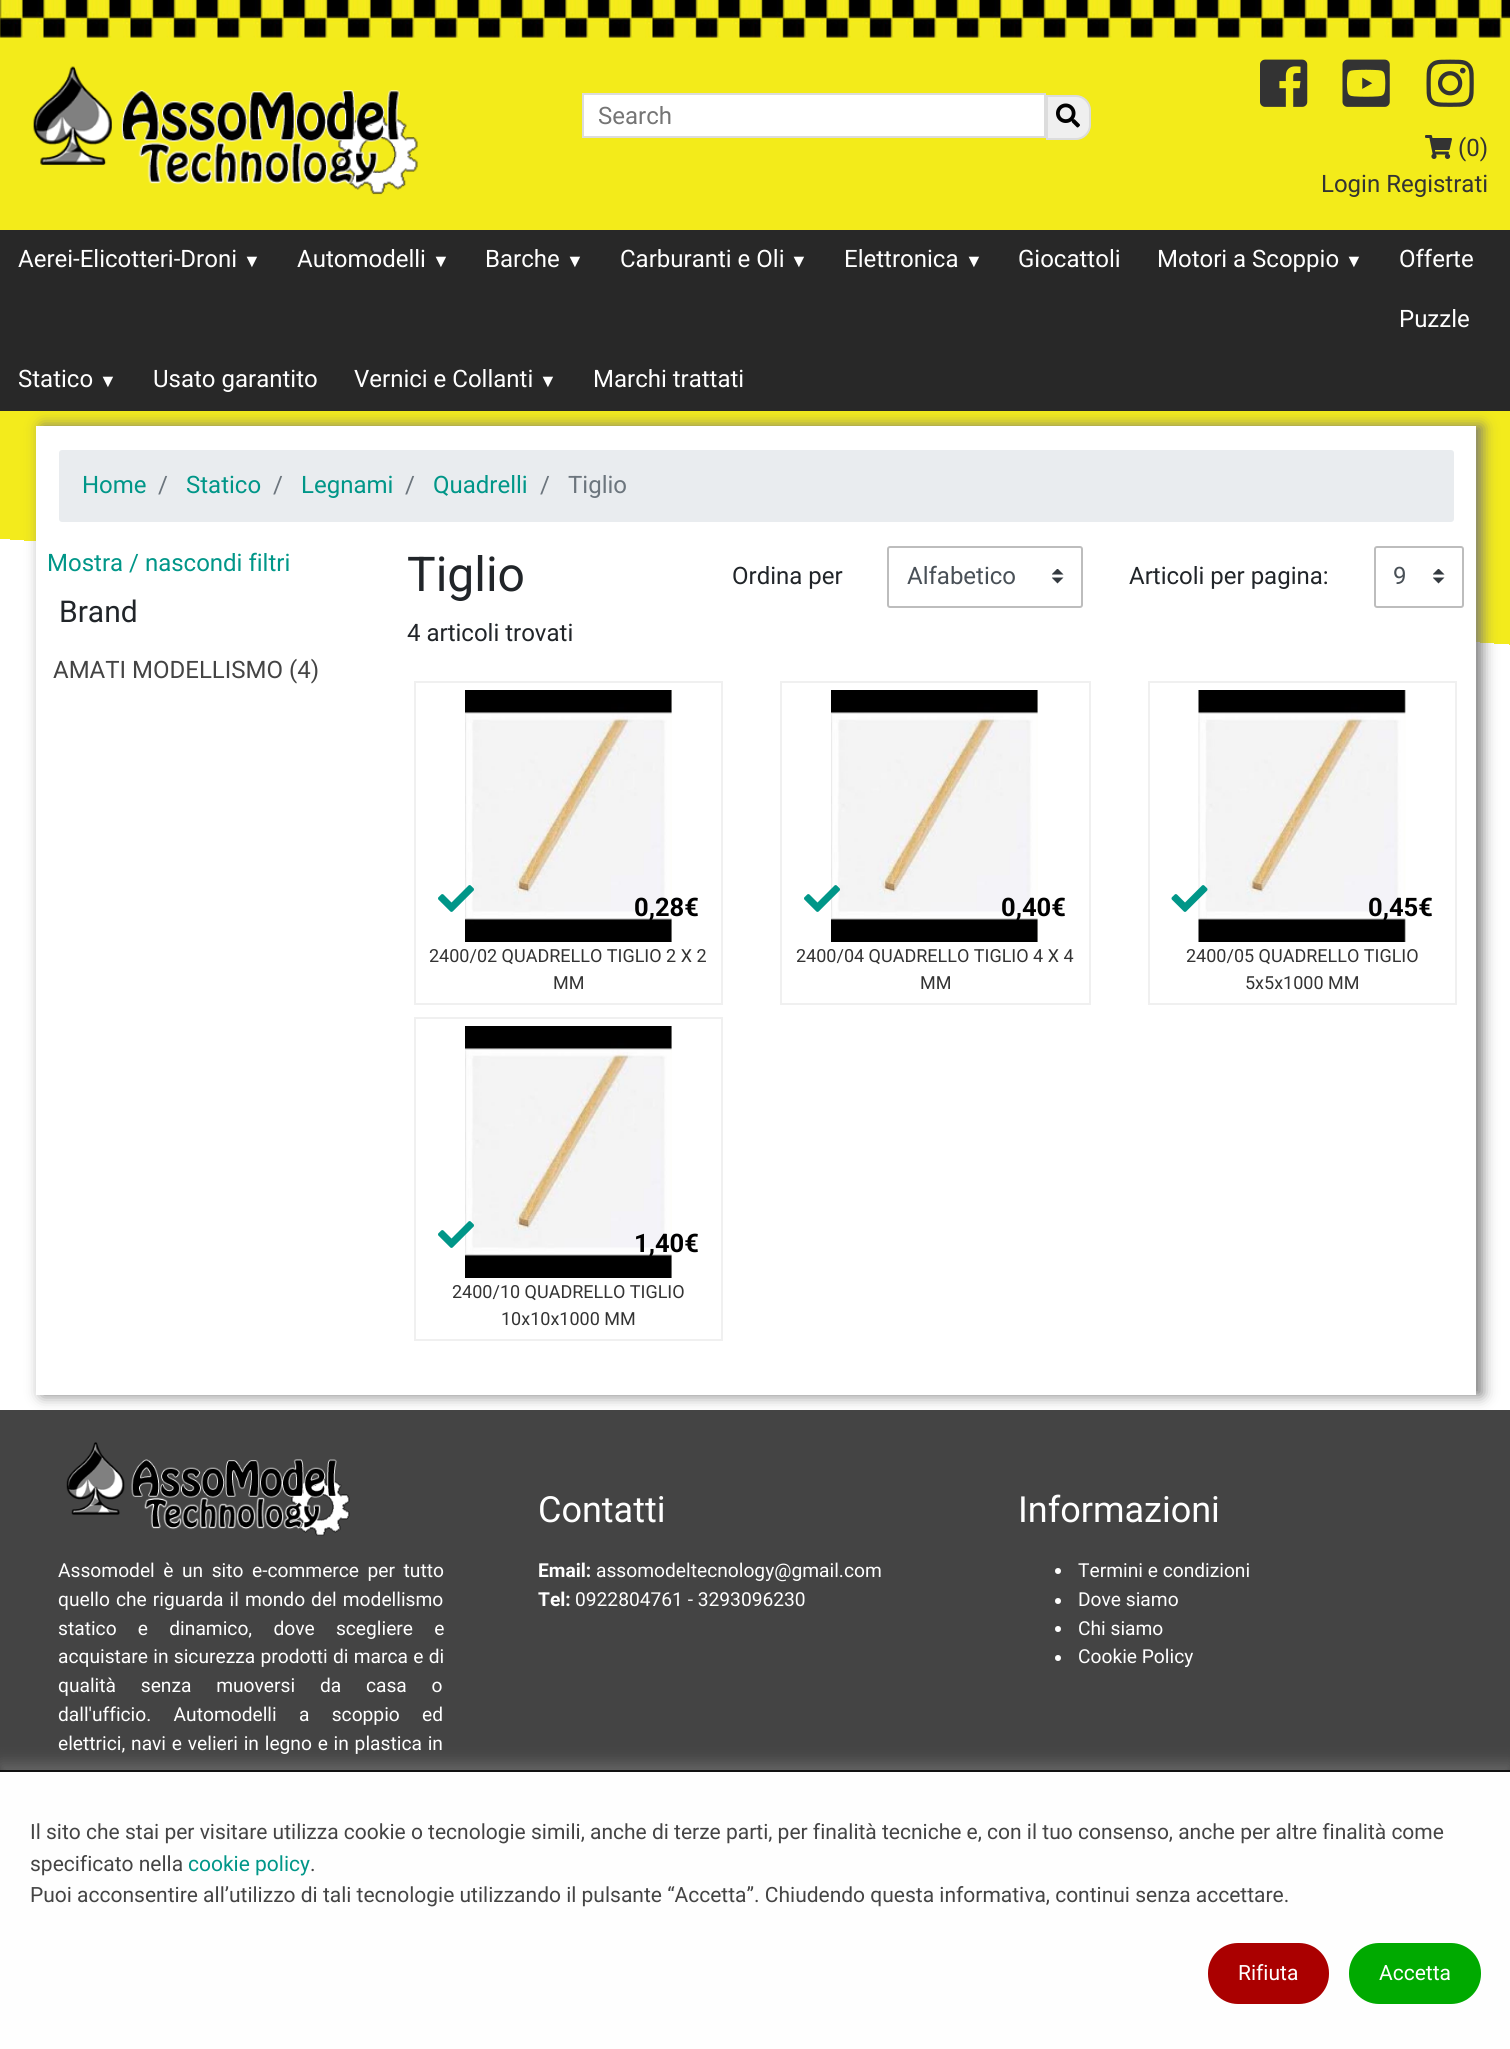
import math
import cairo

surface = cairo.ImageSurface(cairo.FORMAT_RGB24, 1510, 2049)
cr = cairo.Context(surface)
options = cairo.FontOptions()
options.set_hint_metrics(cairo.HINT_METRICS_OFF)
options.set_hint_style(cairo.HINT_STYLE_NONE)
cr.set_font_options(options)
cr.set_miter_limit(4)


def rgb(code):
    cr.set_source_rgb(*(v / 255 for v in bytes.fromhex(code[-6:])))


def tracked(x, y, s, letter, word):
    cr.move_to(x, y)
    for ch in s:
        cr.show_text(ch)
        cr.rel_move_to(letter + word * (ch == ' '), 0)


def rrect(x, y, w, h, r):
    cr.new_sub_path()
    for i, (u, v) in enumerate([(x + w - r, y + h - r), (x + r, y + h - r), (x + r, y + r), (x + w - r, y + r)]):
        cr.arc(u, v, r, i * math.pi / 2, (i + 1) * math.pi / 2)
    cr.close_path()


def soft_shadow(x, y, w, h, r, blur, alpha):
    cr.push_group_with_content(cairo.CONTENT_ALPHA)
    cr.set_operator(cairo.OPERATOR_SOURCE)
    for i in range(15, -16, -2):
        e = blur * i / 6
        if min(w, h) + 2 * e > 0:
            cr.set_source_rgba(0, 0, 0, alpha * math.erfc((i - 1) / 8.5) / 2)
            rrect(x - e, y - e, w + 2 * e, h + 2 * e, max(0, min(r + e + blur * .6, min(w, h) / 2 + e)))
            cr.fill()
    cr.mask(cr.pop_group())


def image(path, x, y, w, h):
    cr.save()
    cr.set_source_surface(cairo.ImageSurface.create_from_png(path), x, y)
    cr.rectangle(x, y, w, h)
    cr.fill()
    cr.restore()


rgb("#ffffff")
cr.paint()
gradient = cairo.LinearGradient(828, -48, 683, 2022)
gradient.add_color_stop_rgba(0.31, 0.953, 0.922, 0.11, 1)
gradient.add_color_stop_rgba(0.31, 1, 1, 1, 1)
cr.set_source(gradient)
cr.rectangle(0, 411, 1510, 234)
cr.fill()
rgb("#f3eb1a")
cr.rectangle(0, 38, 1510, 192)
cr.fill()
image("img/1.png", 0, 0, 1510, 38)
image("img/2.png", 33, 66, 385, 129)
rgb("#ffffff")
cr.rectangle(583, 94, 462, 43)
cr.fill_preserve()
rgb("#dcdcdc")
cr.stroke()
rgb("#efefef")
cr.new_path()
cr.move_to(1047, 96)
cr.line_to(1076, 96)
cr.curve_to(1083.5, 96, 1090, 102.5, 1090, 110)
cr.line_to(1090, 125)
cr.curve_to(1090, 132.5, 1083.5, 139, 1076, 139)
cr.line_to(1047, 139)
cr.close_path()
cr.fill_preserve()
rgb("#dcdcdc")
cr.stroke()
image("img/3.png", 1056, 103, 24, 25)
image("img/4.png", 1260, 59, 48, 48)
image("img/5.png", 1342, 59, 48, 48)
image("img/6.png", 1426, 59, 48, 48)
image("img/7.png", 1425, 135, 27, 24)
rgb("#777777")
soft_shadow(42, 426, 1440, 969, 0, 7.5, 1)
rgb("#282828")
cr.rectangle(0, 230, 1510, 181)
cr.fill()
rgb("#ffffff")
cr.rectangle(36, 426, 1440, 969)
cr.fill()
rgb("#e9ecef")
rrect(59, 450, 1395, 72, 3)
cr.fill()
image("img/8.png", 1052, 569, 12, 15)
rrect(888, 547, 194, 60, 2)
rgb("#bdbdbd")
cr.stroke()
image("img/8.png", 1433, 569, 12, 15)
rrect(1375, 547, 88, 60, 2)
cr.stroke()
cr.rectangle(415, 682, 307, 322)
rgb("#f0f0f0")
cr.stroke()
image("img/9.png", 465, 690, 207, 252)
image("img/10.png", 438, 885, 36, 27)
cr.rectangle(781, 682, 309, 322)
cr.stroke()
image("img/9.png", 831, 690, 207, 252)
image("img/10.png", 804, 885, 36, 27)
cr.rectangle(1149, 682, 307, 322)
cr.stroke()
image("img/11.png", 1198, 690, 208, 252)
image("img/12.png", 1171, 885, 37, 27)
cr.rectangle(415, 1018, 307, 322)
cr.stroke()
image("img/13.png", 465, 1026, 207, 252)
image("img/10.png", 438, 1221, 36, 27)
rgb("#444444")
cr.rectangle(0, 1410, 1510, 360)
cr.fill()
image("img/14.png", 66, 1442, 284, 94)
rgb("#ffffff")
cr.arc(1058, 1571, 3, 0, 2 * math.pi)
cr.fill()
cr.arc(1058, 1601, 3, 0, 2 * math.pi)
cr.fill()
cr.arc(1058, 1629, 3, 0, 2 * math.pi)
cr.fill()
cr.arc(1058, 1658, 3, 0, 2 * math.pi)
cr.fill()
rgb("#666666")
soft_shadow(0, 1763, 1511, 279, 0, 7.5, 1)
rgb("#fefefe")
cr.rectangle(0, 1772, 1510, 277)
cr.fill()
rgb("#111111")
cr.rectangle(0, 1770, 1510, 2)
cr.fill()
rgb("#aa0000")
rrect(1208, 1943, 121, 61, 30)
cr.fill()
rgb("#00aa00")
rrect(1349, 1943, 132, 61, 30)
cr.fill()
cr.select_font_face("Roboto")
cr.set_font_size(24)
rgb("#757575")
cr.move_to(598, 124)
cr.show_text("Search")
rgb("#333333")
cr.move_to(1458, 156)
cr.show_text("(0)")
cr.move_to(1321, 192)
cr.show_text("Login Registrati")
rgb("#ffffff")
cr.move_to(18, 267)
cr.show_text("Aerei-Elicotteri-Droni")
cr.select_font_face("Liberation Sans")
cr.set_font_size(18)
cr.move_to(243, 267)
cr.show_text("▼")
cr.select_font_face("Roboto")
cr.set_font_size(24)
cr.move_to(297, 267)
cr.show_text("Automodelli")
cr.select_font_face("Liberation Sans")
cr.set_font_size(18)
cr.move_to(432, 267)
cr.show_text("▼")
cr.select_font_face("Roboto")
cr.set_font_size(24)
cr.move_to(485, 267)
cr.show_text("Barche")
cr.select_font_face("Liberation Sans")
cr.set_font_size(18)
cr.move_to(566, 267)
cr.show_text("▼")
cr.select_font_face("Roboto")
cr.set_font_size(24)
cr.move_to(620, 267)
cr.show_text("Carburanti e Oli")
cr.select_font_face("Liberation Sans")
cr.set_font_size(18)
cr.move_to(790, 267)
cr.show_text("▼")
cr.select_font_face("Roboto")
cr.set_font_size(24)
cr.move_to(844, 267)
cr.show_text("Elettronica")
cr.select_font_face("Liberation Sans")
cr.set_font_size(18)
cr.move_to(965, 267)
cr.show_text("▼")
cr.select_font_face("Roboto")
cr.set_font_size(24)
cr.move_to(1018, 267)
cr.show_text("Giocattoli")
cr.move_to(1157, 267)
cr.show_text("Motori a Scoppio")
cr.select_font_face("Liberation Sans")
cr.set_font_size(18)
cr.move_to(1345, 267)
cr.show_text("▼")
cr.select_font_face("Roboto")
cr.set_font_size(24)
for x, y, s in [
    (1399, 267, "Offerte"),
    (1399, 327, "Puzzle"),
    (18, 387, "Statico"),
]:
    cr.move_to(x, y)
    cr.show_text(s)
cr.select_font_face("Liberation Sans")
cr.set_font_size(18)
cr.move_to(99, 387)
cr.show_text("▼")
cr.select_font_face("Roboto")
cr.set_font_size(24)
cr.move_to(153, 387)
cr.show_text("Usato garantito")
cr.move_to(354, 387)
cr.show_text("Vernici e Collanti")
cr.select_font_face("Liberation Sans")
cr.set_font_size(18)
cr.move_to(539, 387)
cr.show_text("▼")
cr.select_font_face("Roboto")
cr.set_font_size(24)
cr.move_to(593, 387)
cr.show_text("Marchi trattati")
rgb("#009688")
cr.move_to(82, 493)
cr.show_text("Home")
rgb("#6c757d")
cr.move_to(158, 493)
cr.show_text("/")
rgb("#009688")
cr.move_to(186, 493)
cr.show_text("Statico")
rgb("#6c757d")
cr.move_to(273, 493)
cr.show_text("/")
rgb("#009688")
cr.move_to(301, 493)
cr.show_text("Legnami")
rgb("#6c757d")
cr.move_to(405, 493)
cr.show_text("/")
rgb("#009688")
cr.move_to(433, 493)
cr.show_text("Quadrelli")
rgb("#6c757d")
cr.move_to(540, 493)
cr.show_text("/")
cr.move_to(568, 493)
cr.show_text("Tiglio")
rgb("#009688")
cr.move_to(47, 571)
cr.show_text("Mostra / nascondi filtri")
cr.set_font_size(30)
rgb("#212529")
cr.move_to(59, 622)
cr.show_text("Brand")
cr.set_font_size(24)
rgb("#444444")
cr.move_to(53, 678)
cr.show_text("AMATI MODELLISMO (4)")
cr.set_font_size(48)
rgb("#212529")
cr.move_to(407, 591)
cr.show_text("Tiglio")
cr.set_font_size(24)
cr.move_to(732, 584)
cr.show_text("Ordina per")
rgb("#495057")
cr.move_to(907, 584)
cr.show_text("Alfabetico")
rgb("#212529")
cr.move_to(1129, 584)
cr.show_text("Articoli per pagina:")
rgb("#495057")
cr.move_to(1393, 584)
cr.show_text("9")
rgb("#212529")
cr.move_to(407, 641)
cr.show_text("4 articoli trovati")
cr.select_font_face("Roboto", cairo.FONT_SLANT_NORMAL, cairo.FONT_WEIGHT_BOLD)
cr.set_font_size(25.5)
rgb("#000000")
cr.move_to(634, 916)
cr.show_text("0,28€")
cr.select_font_face("Roboto")
cr.set_font_size(18)
rgb("#333333")
cr.move_to(429, 962)
cr.show_text("2400/02 QUADRELLO TIGLIO 2 X 2")
cr.move_to(553, 989)
cr.show_text("MM")
cr.select_font_face("Roboto", cairo.FONT_SLANT_NORMAL, cairo.FONT_WEIGHT_BOLD)
cr.set_font_size(25.5)
rgb("#000000")
cr.move_to(1001, 916)
cr.show_text("0,40€")
cr.select_font_face("Roboto")
cr.set_font_size(18)
rgb("#333333")
cr.move_to(796, 962)
cr.show_text("2400/04 QUADRELLO TIGLIO 4 X 4")
cr.move_to(920, 989)
cr.show_text("MM")
cr.select_font_face("Roboto", cairo.FONT_SLANT_NORMAL, cairo.FONT_WEIGHT_BOLD)
cr.set_font_size(25.5)
rgb("#000000")
cr.move_to(1368, 916)
cr.show_text("0,45€")
cr.select_font_face("Roboto")
cr.set_font_size(18)
rgb("#333333")
cr.move_to(1186, 962)
cr.show_text("2400/05 QUADRELLO TIGLIO")
cr.move_to(1245, 989)
cr.show_text("5x5x1000 MM")
cr.select_font_face("Roboto", cairo.FONT_SLANT_NORMAL, cairo.FONT_WEIGHT_BOLD)
cr.set_font_size(25.5)
rgb("#000000")
cr.move_to(634, 1252)
cr.show_text("1,40€")
cr.select_font_face("Roboto")
cr.set_font_size(18)
rgb("#333333")
cr.move_to(452, 1298)
cr.show_text("2400/10 QUADRELLO TIGLIO")
cr.move_to(501, 1325)
cr.show_text("10x10x1000 MM")
cr.set_font_size(36)
rgb("#ffffff")
cr.move_to(538, 1522)
cr.show_text("Contatti")
cr.move_to(1018, 1522)
cr.show_text("Informazioni")
cr.set_font_size(19.2)
tracked(58, 1577, "Assomodel è un sito e-commerce per tutto", 0, 3.75)
tracked(58, 1606, "quello che riguarda il mondo del modellismo", 0, 1.25)
tracked(58, 1635, "statico e dinamico, dove scegliere e", 0, 16.5)
tracked(58, 1663, "acquistare in sicurezza prodotti di marca e di", 0, 0.5)
tracked(58, 1692, "qualità senza muoversi da casa o", 0, 20)
tracked(58, 1721, "dall'ufficio. Automodelli a scoppio ed", 0, 17.5)
tracked(58, 1750, "elettrici, navi e velieri in legno e in plastica in", 0, 1)
cr.select_font_face("Roboto", cairo.FONT_SLANT_NORMAL, cairo.FONT_WEIGHT_BOLD)
cr.move_to(538, 1577)
cr.show_text("Email:")
cr.select_font_face("Roboto")
cr.move_to(596, 1577)
cr.show_text("assomodeltecnology@gmail.com")
cr.select_font_face("Roboto", cairo.FONT_SLANT_NORMAL, cairo.FONT_WEIGHT_BOLD)
cr.move_to(538, 1606)
cr.show_text("Tel:")
cr.select_font_face("Roboto")
for x, y, s in [
    (575, 1606, "0922804761 - 3293096230"),
    (1078, 1577, "Termini e condizioni"),
    (1078, 1606, "Dove siamo"),
    (1078, 1635, "Chi siamo"),
    (1078, 1663, "Cookie Policy"),
]:
    cr.move_to(x, y)
    cr.show_text(s)
cr.set_font_size(21)
rgb("#444444")
cr.move_to(30, 1839)
cr.show_text("Il sito che stai per visitare utilizza cookie o tecnologie simili, anche di terze parti, per finalità tecniche e, con il tuo consenso, anche per altre finalità come")
cr.move_to(30, 1871)
cr.show_text("specificato nella")
rgb("#009688")
cr.move_to(188, 1871)
cr.show_text("cookie policy")
rgb("#444444")
cr.move_to(310, 1871)
cr.show_text(".")
cr.move_to(30, 1902)
cr.show_text("Puoi acconsentire all’utilizzo di tali tecnologie utilizzando il pulsante “Accetta”. Chiudendo questa informativa, continui senza accettare.")
rgb("#ffffff")
cr.move_to(1238, 1980)
cr.show_text("Rifiuta")
cr.move_to(1379, 1980)
cr.show_text("Accetta")
surface.write_to_png("page.png")
